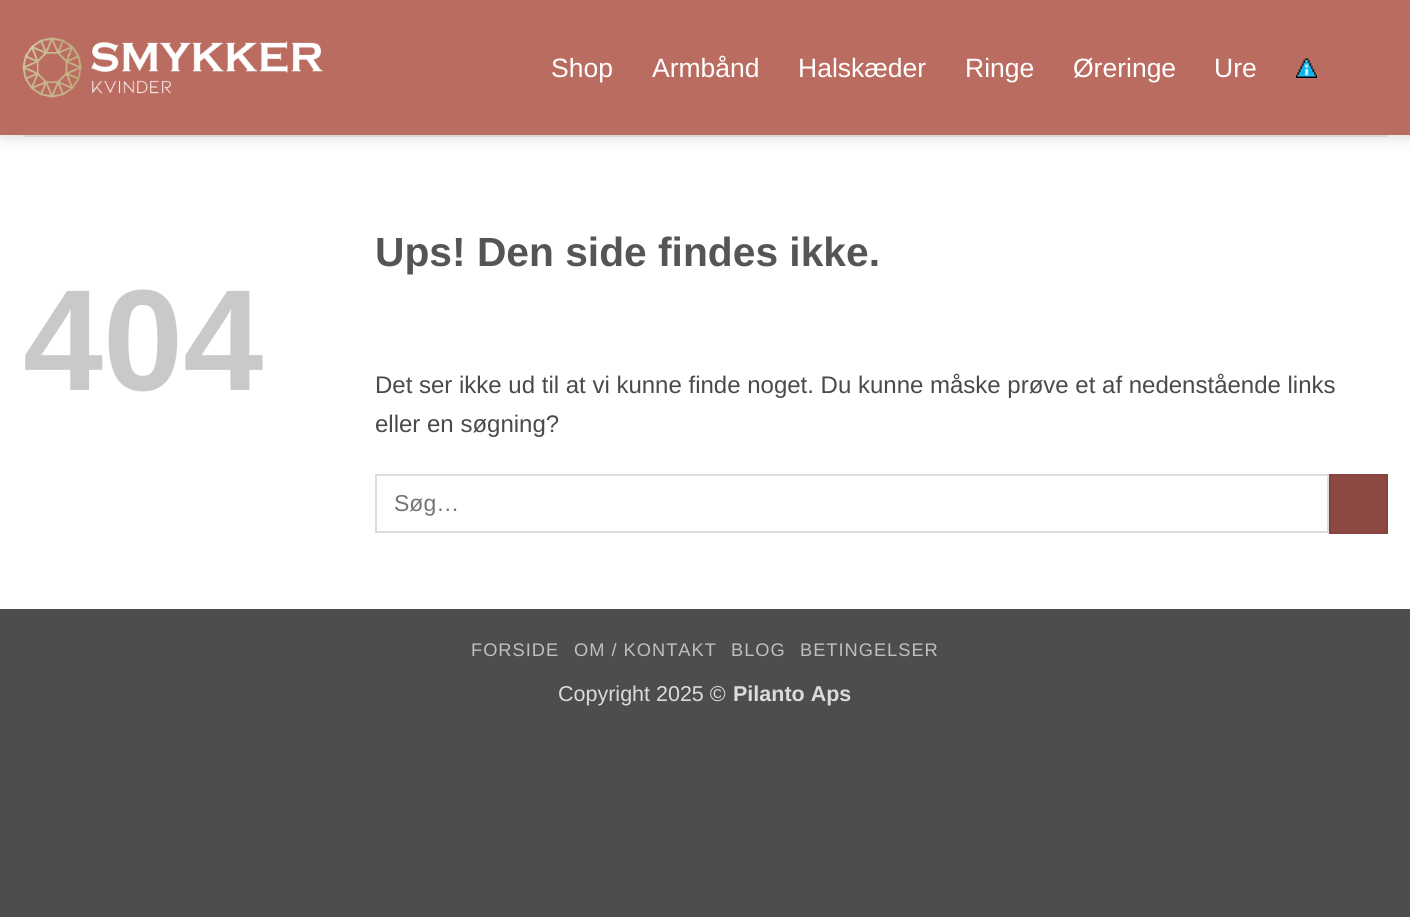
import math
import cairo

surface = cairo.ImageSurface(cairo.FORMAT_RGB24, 1410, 917)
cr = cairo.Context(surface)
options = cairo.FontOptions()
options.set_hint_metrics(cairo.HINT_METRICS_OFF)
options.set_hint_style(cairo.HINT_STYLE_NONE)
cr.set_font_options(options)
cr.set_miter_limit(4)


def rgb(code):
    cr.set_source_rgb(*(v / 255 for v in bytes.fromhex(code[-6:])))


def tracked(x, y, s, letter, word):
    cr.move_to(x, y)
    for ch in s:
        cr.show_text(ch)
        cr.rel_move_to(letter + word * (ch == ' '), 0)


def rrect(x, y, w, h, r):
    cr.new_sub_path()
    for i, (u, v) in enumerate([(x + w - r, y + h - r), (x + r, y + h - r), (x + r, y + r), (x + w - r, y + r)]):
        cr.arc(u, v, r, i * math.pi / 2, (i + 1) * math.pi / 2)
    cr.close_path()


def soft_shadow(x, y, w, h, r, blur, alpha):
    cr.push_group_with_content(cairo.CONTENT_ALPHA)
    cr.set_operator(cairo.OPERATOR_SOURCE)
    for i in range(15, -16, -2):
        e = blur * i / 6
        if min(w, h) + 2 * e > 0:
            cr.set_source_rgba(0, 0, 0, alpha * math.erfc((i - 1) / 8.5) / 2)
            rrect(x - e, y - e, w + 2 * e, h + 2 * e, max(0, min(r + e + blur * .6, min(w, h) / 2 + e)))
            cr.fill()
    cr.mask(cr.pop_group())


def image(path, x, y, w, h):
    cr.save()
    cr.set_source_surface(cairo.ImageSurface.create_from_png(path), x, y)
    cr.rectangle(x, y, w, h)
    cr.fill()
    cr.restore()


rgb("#4d4d4d")
cr.paint()
rgb("#ffffff")
cr.rectangle(0, 135, 1410, 474)
cr.fill()
rgb("#000000")
soft_shadow(2, 2, 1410, 135, 0, 7.5, 0.15)
rgb("#bb6c61")
cr.rectangle(0, 0, 1410, 135)
cr.fill()
image("img/1.png", 22, 37, 301, 61)
image("img/2.png", 1296, 58, 21, 20)
rgb("#dadada")
cr.rectangle(23, 135, 1365, 2)
cr.fill()
cr.rectangle(376, 475, 952, 57)
rgb("#dddddd")
cr.stroke()
rgb("#8d4843")
cr.rectangle(1330, 475, 57, 58)
cr.fill_preserve()
rgb("#864440")
cr.stroke()
cr.select_font_face("Liberation Sans")
cr.set_font_size(26.5)
rgb("#ffffff")
for x, y, s in [
    (551, 77, "Shop"),
    (652, 77, "Armbånd"),
    (798, 77, "Halskæder"),
    (965, 77, "Ringe"),
    (1073, 77, "Øreringe"),
    (1214, 77, "Ure"),
]:
    cr.move_to(x, y)
    cr.show_text(s)
cr.select_font_face("Liberation Sans", cairo.FONT_SLANT_NORMAL, cairo.FONT_WEIGHT_BOLD)
cr.set_font_size(144)
rgb("#c9c9c9")
cr.move_to(23, 390)
cr.show_text("404")
cr.set_font_size(40.75)
rgb("#555555")
cr.move_to(375, 266)
cr.show_text("Ups! Den side findes ikke.")
cr.select_font_face("Liberation Sans")
cr.set_font_size(24)
rgb("#4a4a4a")
cr.move_to(375, 393)
cr.show_text("Det ser ikke ud til at vi kunne finde noget. Du kunne måske prøve et af nedenstående links")
cr.move_to(375, 432)
cr.show_text("eller en søgning?")
cr.set_font_size(23)
rgb("#757575")
cr.move_to(394, 511)
cr.show_text("Søg…")
cr.set_font_size(18.25)
rgb("#bfbfbf")
for x, y, s in [
    (471, 656, "FORSIDE"),
    (574, 656, "OM / KONTAKT"),
    (731, 656, "BLOG"),
    (800, 656, "BETINGELSER"),
]:
    tracked(x, y, s, 1, 0)
cr.set_font_size(21.5)
rgb("#dbdbdb")
cr.move_to(558, 701)
cr.show_text("Copyright 2025 ©")
cr.select_font_face("Liberation Sans", cairo.FONT_SLANT_NORMAL, cairo.FONT_WEIGHT_BOLD)
cr.move_to(733, 701)
cr.show_text("Pilanto Aps")
surface.write_to_png("page.png")
